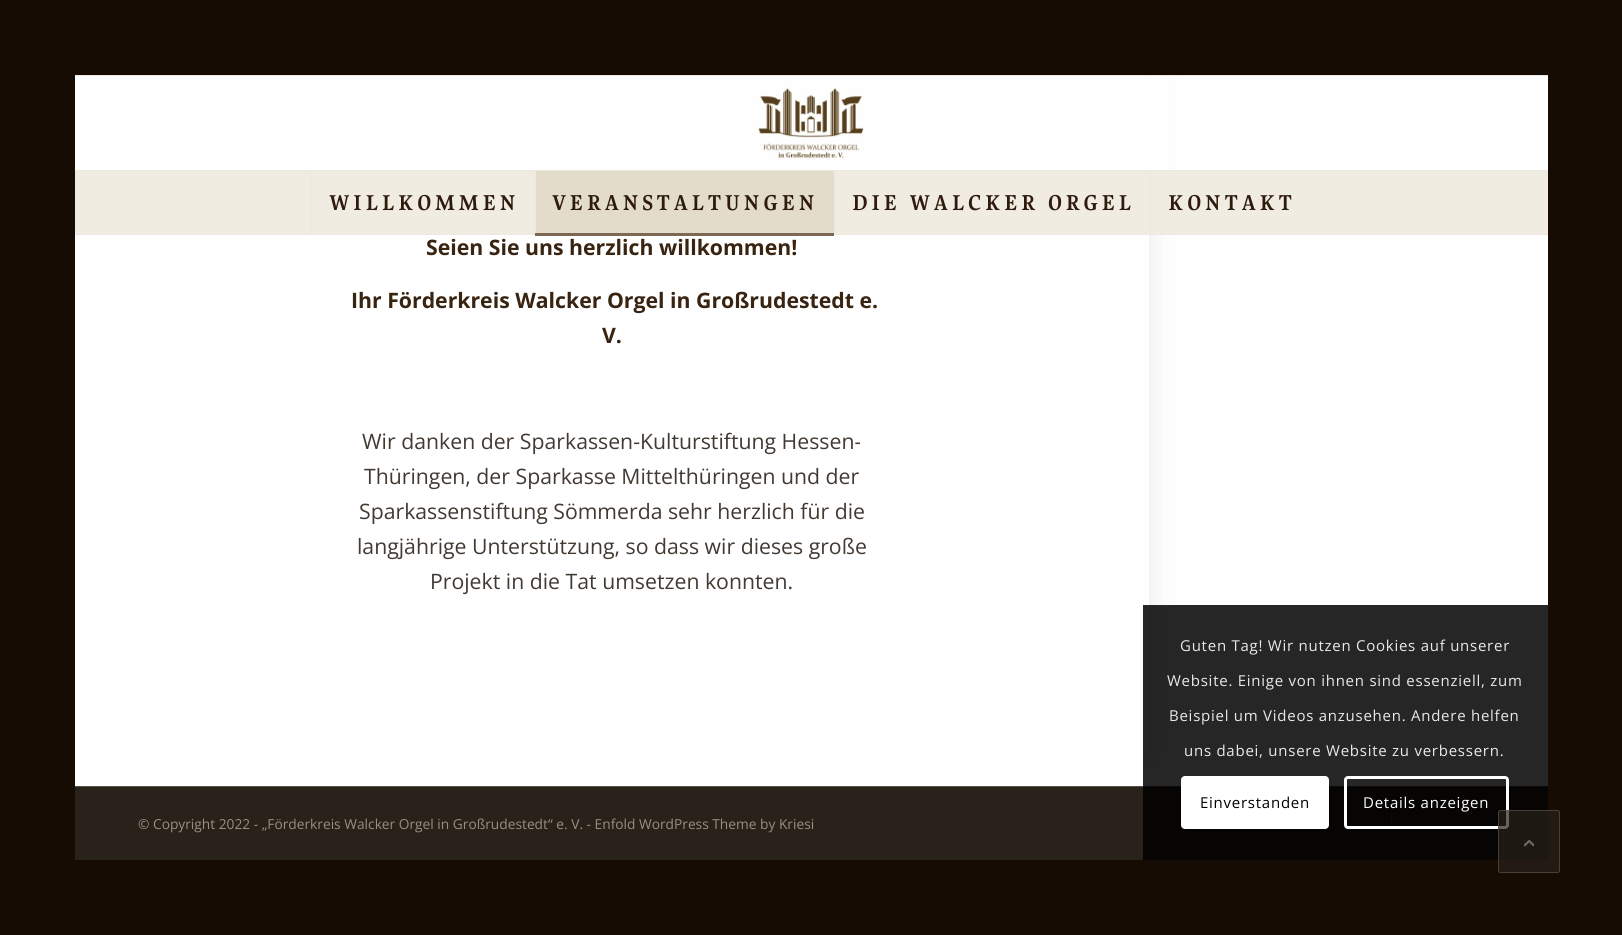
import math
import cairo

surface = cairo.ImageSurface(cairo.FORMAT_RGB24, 1622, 935)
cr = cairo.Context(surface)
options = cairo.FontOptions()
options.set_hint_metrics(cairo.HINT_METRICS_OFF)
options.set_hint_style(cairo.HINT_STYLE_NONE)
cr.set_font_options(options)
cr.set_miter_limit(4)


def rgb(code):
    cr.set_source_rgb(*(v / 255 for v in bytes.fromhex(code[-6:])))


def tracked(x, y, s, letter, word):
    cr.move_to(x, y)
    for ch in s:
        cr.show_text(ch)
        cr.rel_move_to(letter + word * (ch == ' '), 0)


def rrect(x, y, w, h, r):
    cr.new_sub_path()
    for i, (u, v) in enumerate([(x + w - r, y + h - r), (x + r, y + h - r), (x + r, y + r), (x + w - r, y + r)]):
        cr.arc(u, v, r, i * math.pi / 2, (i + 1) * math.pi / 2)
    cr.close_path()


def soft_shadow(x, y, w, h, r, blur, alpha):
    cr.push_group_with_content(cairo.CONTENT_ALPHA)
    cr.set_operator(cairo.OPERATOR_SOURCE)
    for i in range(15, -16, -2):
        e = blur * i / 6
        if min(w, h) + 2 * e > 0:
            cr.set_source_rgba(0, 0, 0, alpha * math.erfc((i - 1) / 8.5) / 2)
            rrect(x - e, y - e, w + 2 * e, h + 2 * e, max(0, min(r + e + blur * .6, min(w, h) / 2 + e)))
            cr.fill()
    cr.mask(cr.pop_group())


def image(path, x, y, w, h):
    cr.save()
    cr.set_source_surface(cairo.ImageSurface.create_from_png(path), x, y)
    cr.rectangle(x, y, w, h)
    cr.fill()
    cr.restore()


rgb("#ffffff")
cr.paint()
rgb("#170c04")
cr.rectangle(0, 0, 75, 935)
cr.fill()
cr.save()
cr.set_fill_rule(cairo.FILL_RULE_EVEN_ODD)
cr.new_path()
cr.move_to(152, 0)
cr.line_to(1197, 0)
cr.line_to(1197, 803)
cr.line_to(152, 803)
cr.close_path()
cr.move_to(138, -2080)
cr.line_to(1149, -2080)
cr.line_to(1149, 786)
cr.line_to(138, 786)
cr.close_path()
cr.clip()
rgb("#e9e9eb")
soft_shadow(200, -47, 949, 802, 0, 15.5, 1)
cr.restore()
cr.rectangle(75, 0, 1473, 75)
cr.rectangle(1548, 0, 74, 935)
cr.fill()
cr.set_source_rgba(1, 1, 1, 0.95)
cr.rectangle(1148, 76, 19, 94)
cr.fill()
rgb("#ebe8e2")
cr.rectangle(75, 75, 1473, 1)
cr.rectangle(75, 234, 1473, 1)
cr.fill()
image("img/1.png", 745, 80, 119, 86)
rgb("#f0ece2")
cr.rectangle(75, 171, 1473, 63)
cr.fill()
rgb("#ebe8e2")
cr.rectangle(75, 170, 1473, 1)
cr.rectangle(311, 171, 1, 63)
cr.fill()
rgb("#e3dcca")
cr.rectangle(536, 171, 298, 62)
cr.fill()
rgb("#ebe8e2")
cr.rectangle(535, 171, 1, 63)
cr.fill()
rgb("#7c6853")
cr.rectangle(535, 233, 299, 3)
cr.fill()
rgb("#ebe8e2")
cr.rectangle(834, 171, 1, 63)
cr.rectangle(1150, 171, 1, 63)
cr.fill()
rgb("#29221a")
cr.rectangle(75, 787, 1473, 73)
cr.fill()
rgb("#575149")
cr.rectangle(75, 786, 1473, 1)
cr.rectangle(1391, 814, 1, 12)
cr.fill()
cr.set_source_rgba(0, 0, 0, 0.85)
cr.rectangle(1143, 605, 405, 255)
cr.fill()
rgb("#ffffff")
rrect(1181, 776, 148, 53, 4)
cr.fill()
rrect(1345.5, 777.5, 162, 50, 2.5)
cr.set_line_width(3)
cr.stroke()
rgb("#170c04")
cr.rectangle(75, 860, 1473, 75)
cr.fill()
cr.set_source_rgba(0.161, 0.133, 0.102, 0.7)
rrect(1498, 810, 62, 63, 2.5)
cr.fill()
rrect(1498.5, 810.5, 61, 62, 2)
cr.set_source_rgba(0.341, 0.318, 0.286, 0.7)
cr.set_line_width(1)
cr.stroke()
image("img/2.png", 1524, 840, 10, 7)
cr.select_font_face("Gupter", cairo.FONT_SLANT_NORMAL, cairo.FONT_WEIGHT_BOLD)
cr.set_font_size(23.75)
rgb("#2e1b0e")
for x, y, s in [
    (329, 210, "WILLKOMMEN"),
    (552, 210, "VERANSTALTUNGEN"),
    (852, 210, "DIE WALCKER ORGEL"),
    (1168, 210, "KONTAKT"),
]:
    tracked(x, y, s, 3.6, 0)
cr.select_font_face("Open Sans", cairo.FONT_SLANT_NORMAL, cairo.FONT_WEIGHT_BOLD)
cr.set_font_size(21.25)
rgb("#382410")
for x, y, s in [
    (426, 255, "Seien Sie uns herzlich willkommen!"),
    (351, 308, "Ihr Förderkreis Walcker Orgel in Großrudestedt e."),
    (602, 343, "V."),
]:
    cr.move_to(x, y)
    cr.show_text(s)
cr.select_font_face("Open Sans")
rgb("#423a32")
for x, y, s in [
    (362, 449, "Wir danken der Sparkassen-Kulturstiftung Hessen-"),
    (364, 484, "Thüringen, der Sparkasse Mittelthüringen und der"),
    (359, 519, "Sparkassenstiftung Sömmerda sehr herzlich für die"),
    (357, 554, "langjährige Unterstützung, so dass wir dieses große"),
    (430, 589, "Projekt in die Tat umsetzen konnten."),
]:
    cr.move_to(x, y)
    cr.show_text(s)
cr.set_font_size(13.75)
rgb("#988f81")
cr.move_to(138, 829)
cr.show_text("© Copyright 2022 - „Förderkreis Walcker Orgel in Großrudestedt“ e. V. - Enfold WordPress Theme by Kriesi")
cr.set_font_size(15)
rgb("#e9e9e9")
for x, y, s in [
    (1180, 651, "Guten Tag! Wir nutzen Cookies auf unserer"),
    (1167, 686, "Website. Einige von ihnen sind essenziell, zum"),
    (1169, 721, "Beispiel um Videos anzusehen. Andere helfen"),
    (1184, 756, "uns dabei, unsere Website zu verbessern."),
]:
    tracked(x, y, s, 0.75, 0)
rgb("#000000")
tracked(1200, 808, "Einverstanden", 0.75, 0)
rgb("#ffffff")
tracked(1363, 808, "Details anzeigen", 0.75, 0)
surface.write_to_png("page.png")
